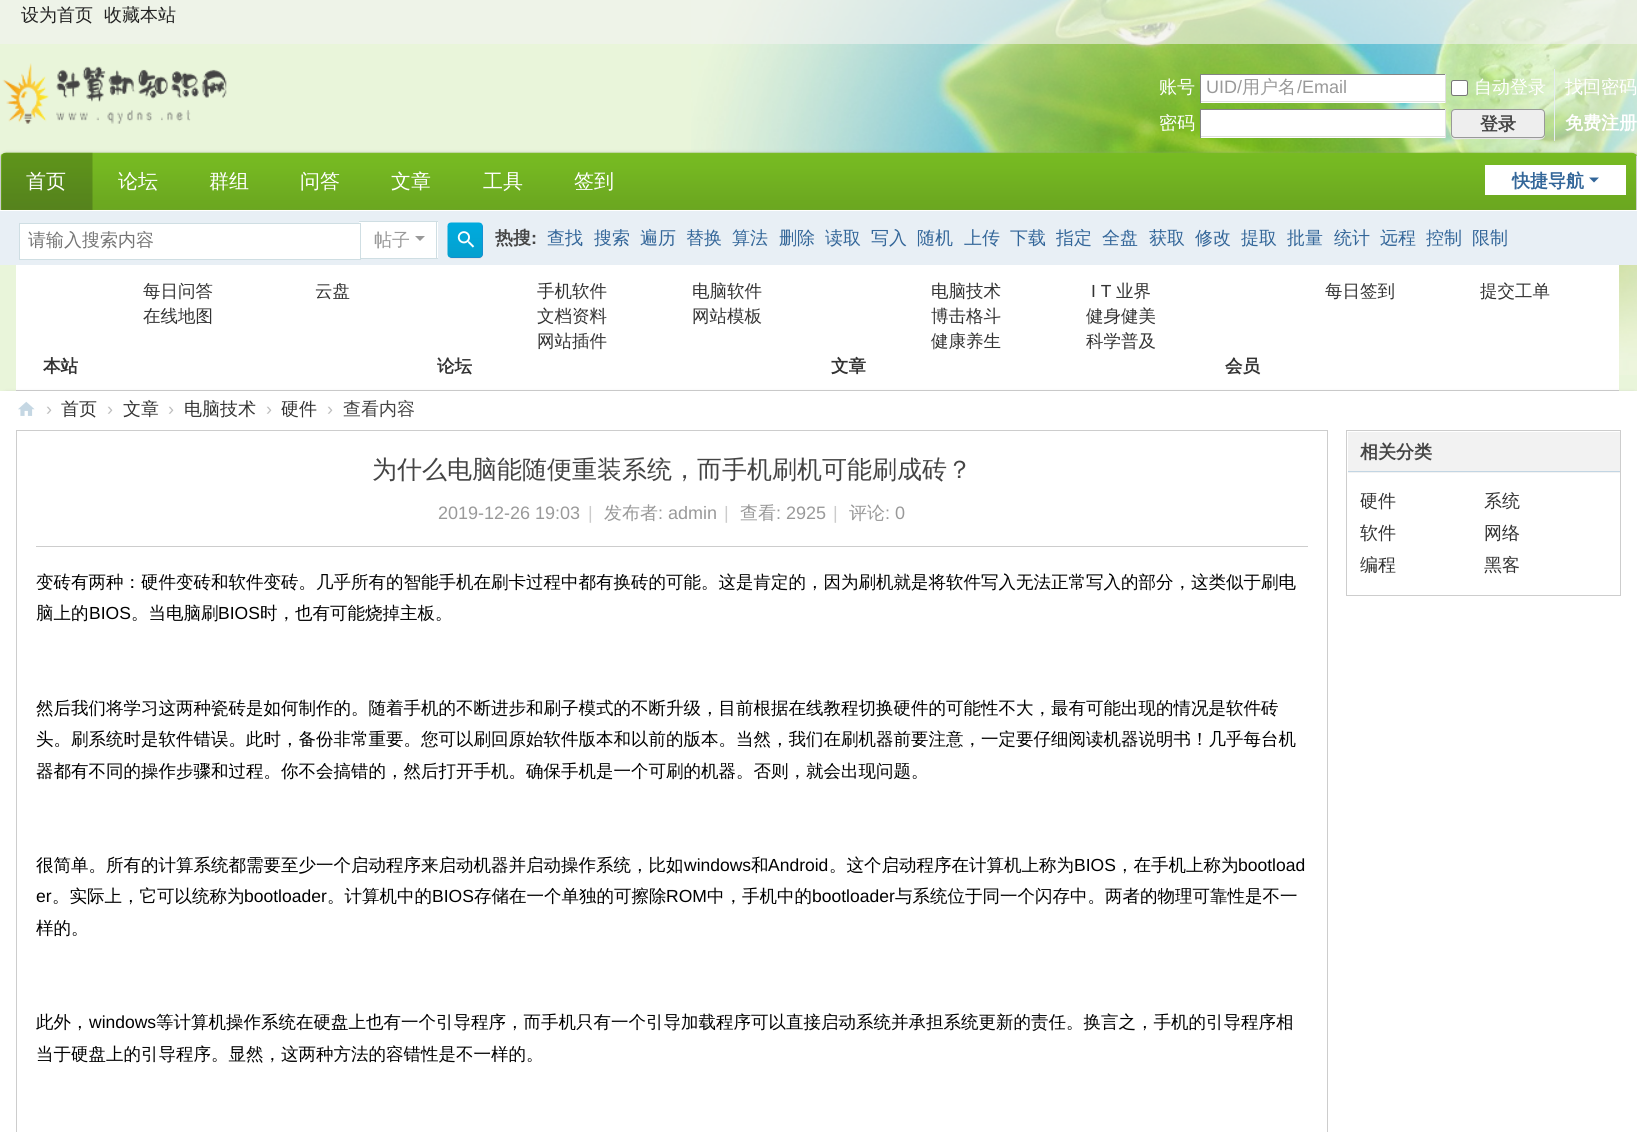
import math
import cairo

surface = cairo.ImageSurface(cairo.FORMAT_RGB24, 1637, 1132)
cr = cairo.Context(surface)
options = cairo.FontOptions()
options.set_hint_metrics(cairo.HINT_METRICS_OFF)
options.set_hint_style(cairo.HINT_STYLE_NONE)
cr.set_font_options(options)
cr.set_miter_limit(4)


def rgb(code):
    cr.set_source_rgb(*(v / 255 for v in bytes.fromhex(code[-6:])))


def rrect(x, y, w, h, r):
    cr.new_sub_path()
    for i, (u, v) in enumerate([(x + w - r, y + h - r), (x + r, y + h - r), (x + r, y + r), (x + w - r, y + r)]):
        cr.arc(u, v, r, i * math.pi / 2, (i + 1) * math.pi / 2)
    cr.close_path()


def soft_shadow(x, y, w, h, r, blur, alpha):
    cr.push_group_with_content(cairo.CONTENT_ALPHA)
    cr.set_operator(cairo.OPERATOR_SOURCE)
    for i in range(15, -16, -2):
        e = blur * i / 6
        if min(w, h) + 2 * e > 0:
            cr.set_source_rgba(0, 0, 0, alpha * math.erfc((i - 1) / 8.5) / 2)
            rrect(x - e, y - e, w + 2 * e, h + 2 * e, max(0, min(r + e + blur * .6, min(w, h) / 2 + e)))
            cr.fill()
    cr.mask(cr.pop_group())


def image(path, x, y, w, h):
    cr.save()
    cr.set_source_surface(cairo.ImageSurface.create_from_png(path), x, y)
    cr.rectangle(x, y, w, h)
    cr.fill()
    cr.restore()


rgb("#e9f5da")
cr.paint()
image("img/1.png", 691, 0, 946, 375)
cr.set_source_rgba(0.949, 0.949, 0.949, 0.6)
cr.rectangle(0, 0, 1637, 44)
cr.fill()
image("img/2.png", 2, 63, 225, 61)
for x, y, w, h, color in [
    (1201, 75, 244, 28, "#ffffff"),
    (1200, 74, 246, 1, "#848484"),
    (1445, 74, 1, 29, "#e0e0e0"),
    (1200, 101, 246, 1, "#e0e0e0"),
    (1200, 74, 1, 29, "#848484"),
]:
    rgb(color)
    cr.rectangle(x, y, w, h)
    cr.fill()
rgb("#ffffff")
rrect(1451.5, 80.5, 16, 15, 2)
cr.fill_preserve()
rgb("#767676")
cr.set_line_width(1)
cr.stroke()
for x, y, w, h, color in [
    (1201, 110, 244, 28, "#ffffff"),
    (1200, 109, 246, 1, "#848484"),
    (1445, 109, 1, 29, "#e0e0e0"),
    (1200, 136, 246, 1, "#e0e0e0"),
    (1200, 109, 1, 29, "#848484"),
    (1554, 69, 1, 72, "#e5edf2"),
]:
    rgb(color)
    cr.rectangle(x, y, w, h)
    cr.fill()
rgb("#e5e5e5")
cr.new_path()
cr.move_to(1451, 113)
cr.line_to(1451, 128)
cr.curve_to(1451, 143, 1452, 139, 1469, 139)
cr.line_to(1527, 139)
cr.curve_to(1528, 139, 1545, 143, 1545, 135)
cr.line_to(1545, 134)
cr.curve_to(1545, 136, 1543, 138, 1541, 138)
cr.line_to(1455, 138)
cr.curve_to(1453, 138, 1451, 136, 1451, 134)
cr.close_path()
cr.fill()
rgb("#eeeeee")
rrect(1451.5, 109.5, 93, 28, 3.5)
cr.fill_preserve()
rgb("#999999")
cr.stroke()
rgb("#999999")
soft_shadow(1, 154, 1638, 57, 6, 2, 1)
image("img/3.png", 0, 152, 1637, 58)
rgb("#cdcdcd")
cr.rectangle(1636, 156, 1, 54)
cr.fill()
cr.rectangle(0, 156, 1, 54)
cr.fill()
image("img/4.png", 1, 152, 92, 58)
rgb("#ffffff")
cr.rectangle(1485, 165, 141, 30)
cr.fill()
rgb("#336699")
cr.new_path()
cr.move_to(1589, 177.5)
cr.line_to(1599, 177.5)
cr.line_to(1594, 182.5)
cr.close_path()
cr.fill()
for x, y, w, h, color in [
    (0, 211, 1637, 54, "#e8eff5"),
    (0, 210, 1637, 1, "#ffffff"),
    (359, 222, 79, 36, "#ffffff"),
    (359, 221, 79, 1, "#cfdee3"),
    (436, 221, 1, 38, "#cfdee3"),
    (359, 258, 79, 1, "#cfdee3"),
]:
    rgb(color)
    cr.rectangle(x, y, w, h)
    cr.fill()
rgb("#ffffff")
cr.rectangle(19.5, 223.5, 341, 36)
cr.fill_preserve()
rgb("#cfdee3")
cr.stroke()
rgb("#999999")
cr.new_path()
cr.move_to(415, 236)
cr.line_to(425, 236)
cr.line_to(420, 241)
cr.close_path()
cr.fill()
rgb("#e5e5e5")
cr.new_path()
cr.move_to(448, 255.5)
cr.curve_to(448.5, 257.5, 450, 259, 452, 259)
cr.line_to(479, 259)
cr.curve_to(481, 259, 483, 257, 483, 255)
cr.line_to(483, 228)
cr.line_to(482.5, 226)
cr.line_to(482.5, 249)
cr.curve_to(482.5, 257.5, 482.5, 257.5, 474, 257.5)
cr.line_to(456, 257.5)
cr.curve_to(453.5, 257.5, 449.5, 258.5, 448, 255.5)
cr.close_path()
cr.fill()
rgb("#2b7acd")
rrect(448, 223, 35, 35, 4)
cr.fill()
image("img/5.png", 447, 222, 36, 36)
image("img/6.png", 457, 231, 18, 17)
rgb("#ffffff")
cr.rectangle(16, 265, 1603, 125)
cr.fill()
rgb("#cdcdcd")
cr.rectangle(16, 390, 1603, 1)
cr.fill()
rgb("#aaaaaa")
soft_shadow(1, 393, 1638, 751, 6, 2, 1)
rgb("#ffffff")
cr.rectangle(0, 391, 1637, 741)
cr.fill()
image("img/7.png", 18, 401, 17, 15)
cr.rectangle(16.5, 430.5, 1311, 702)
rgb("#cdcdcd")
cr.stroke()
cr.rectangle(36, 546, 1272, 1)
cr.fill()
cr.rectangle(1346.5, 430.5, 274, 165)
cr.stroke()
rgb("#f2f2f2")
cr.rectangle(1348, 432, 272, 41)
cr.fill()
rgb("#c2d5e3")
cr.rectangle(1348, 471, 272, 1)
cr.fill()
cr.select_font_face("WenQuanYi Zen Hei Medium")
cr.set_font_size(18)
rgb("#222222")
cr.move_to(21, 21)
cr.show_text("设为首页")
cr.move_to(104, 21)
cr.show_text("收藏本站")
rgb("#ffffff")
cr.move_to(1159, 93)
cr.show_text("账号")
cr.select_font_face("Liberation Sans")
rgb("#999999")
cr.move_to(1206, 93)
cr.show_text("UID/")
cr.select_font_face("WenQuanYi Zen Hei Medium")
cr.move_to(1242, 93)
cr.show_text("用户名")
cr.select_font_face("Liberation Sans")
cr.move_to(1297, 93)
cr.show_text("/Email")
cr.select_font_face("WenQuanYi Zen Hei Medium")
rgb("#ffffff")
for x, y, s in [
    (1474, 93, "自动登录"),
    (1565, 93, "找回密码"),
    (1159, 129, "密码"),
]:
    cr.move_to(x, y)
    cr.show_text(s)
cr.select_font_face("WenQuanYi Zen Hei", cairo.FONT_SLANT_NORMAL, cairo.FONT_WEIGHT_BOLD)
rgb("#444444")
cr.move_to(1480, 130)
cr.show_text("登录")
rgb("#ffffff")
cr.move_to(1565, 129)
cr.show_text("免费注册")
cr.select_font_face("WenQuanYi Zen Hei Medium")
cr.set_font_size(20)
for x, y, s in [
    (26, 188, "首页"),
    (118, 188, "论坛"),
    (209, 188, "群组"),
    (300, 188, "问答"),
    (391, 188, "文章"),
    (483, 188, "工具"),
    (574, 188, "签到"),
]:
    cr.move_to(x, y)
    cr.show_text(s)
cr.select_font_face("WenQuanYi Zen Hei", cairo.FONT_SLANT_NORMAL, cairo.FONT_WEIGHT_BOLD)
cr.set_font_size(18)
rgb("#336699")
cr.move_to(1512, 187)
cr.show_text("快捷导航")
cr.select_font_face("WenQuanYi Zen Hei Medium")
rgb("#757575")
cr.move_to(28, 246)
cr.show_text("请输入搜索内容")
rgb("#999999")
cr.move_to(374, 246)
cr.show_text("帖子")
cr.select_font_face("WenQuanYi Zen Hei", cairo.FONT_SLANT_NORMAL, cairo.FONT_WEIGHT_BOLD)
rgb("#444444")
cr.move_to(495, 244)
cr.show_text("热搜")
cr.select_font_face("Liberation Sans", cairo.FONT_SLANT_NORMAL, cairo.FONT_WEIGHT_BOLD)
cr.move_to(531, 244)
cr.show_text(":")
cr.select_font_face("WenQuanYi Zen Hei Medium")
rgb("#336699")
for x, y, s in [
    (547, 244, "查找"),
    (594, 244, "搜索"),
    (640, 244, "遍历"),
    (686, 244, "替换"),
    (732, 244, "算法"),
    (779, 244, "删除"),
    (825, 244, "读取"),
    (871, 244, "写入"),
    (917, 244, "随机"),
    (964, 244, "上传"),
    (1010, 244, "下载"),
    (1056, 244, "指定"),
    (1102, 244, "全盘"),
    (1149, 244, "获取"),
    (1195, 244, "修改"),
    (1241, 244, "提取"),
    (1287, 244, "批量"),
    (1334, 244, "统计"),
    (1380, 244, "远程"),
    (1426, 244, "控制"),
    (1472, 244, "限制"),
]:
    cr.move_to(x, y)
    cr.show_text(s)
cr.set_font_size(17.5)
rgb("#333333")
for x, y, s in [
    (143, 297, "每日问答"),
    (315, 297, "云盘"),
    (143, 322, "在线地图"),
]:
    cr.move_to(x, y)
    cr.show_text(s)
cr.select_font_face("WenQuanYi Zen Hei", cairo.FONT_SLANT_NORMAL, cairo.FONT_WEIGHT_BOLD)
cr.move_to(43, 372)
cr.show_text("本站")
cr.select_font_face("WenQuanYi Zen Hei Medium")
for x, y, s in [
    (537, 297, "手机软件"),
    (692, 297, "电脑软件"),
    (537, 322, "文档资料"),
    (692, 322, "网站模板"),
    (537, 347, "网站插件"),
]:
    cr.move_to(x, y)
    cr.show_text(s)
cr.select_font_face("WenQuanYi Zen Hei", cairo.FONT_SLANT_NORMAL, cairo.FONT_WEIGHT_BOLD)
cr.move_to(437, 372)
cr.show_text("论坛")
cr.select_font_face("WenQuanYi Zen Hei Medium")
cr.move_to(931, 297)
cr.show_text("电脑技术")
cr.select_font_face("Liberation Sans")
cr.move_to(1091, 297)
cr.show_text("I T")
cr.select_font_face("WenQuanYi Zen Hei Medium")
for x, y, s in [
    (1116, 297, "业界"),
    (931, 322, "博击格斗"),
    (1086, 322, "健身健美"),
    (931, 347, "健康养生"),
    (1086, 347, "科学普及"),
]:
    cr.move_to(x, y)
    cr.show_text(s)
cr.select_font_face("WenQuanYi Zen Hei", cairo.FONT_SLANT_NORMAL, cairo.FONT_WEIGHT_BOLD)
cr.move_to(831, 372)
cr.show_text("文章")
cr.select_font_face("WenQuanYi Zen Hei Medium")
cr.move_to(1325, 297)
cr.show_text("每日签到")
cr.move_to(1480, 297)
cr.show_text("提交工单")
cr.select_font_face("WenQuanYi Zen Hei", cairo.FONT_SLANT_NORMAL, cairo.FONT_WEIGHT_BOLD)
cr.move_to(1225, 372)
cr.show_text("会员")
cr.select_font_face("Liberation Sans")
cr.set_font_size(18)
rgb("#bdbdbd")
cr.move_to(46, 415)
cr.show_text("›")
cr.select_font_face("WenQuanYi Zen Hei Medium")
rgb("#333333")
cr.move_to(61, 415)
cr.show_text("首页")
cr.select_font_face("Liberation Sans")
rgb("#bdbdbd")
cr.move_to(107, 415)
cr.show_text("›")
cr.select_font_face("WenQuanYi Zen Hei Medium")
rgb("#333333")
cr.move_to(123, 415)
cr.show_text("文章")
cr.select_font_face("Liberation Sans")
rgb("#bdbdbd")
cr.move_to(168, 415)
cr.show_text("›")
cr.select_font_face("WenQuanYi Zen Hei Medium")
rgb("#333333")
cr.move_to(184, 415)
cr.show_text("电脑技术")
cr.select_font_face("Liberation Sans")
rgb("#bdbdbd")
cr.move_to(266, 415)
cr.show_text("›")
cr.select_font_face("WenQuanYi Zen Hei Medium")
rgb("#333333")
cr.move_to(281, 415)
cr.show_text("硬件")
cr.select_font_face("Liberation Sans")
rgb("#bdbdbd")
cr.move_to(327, 415)
cr.show_text("›")
cr.select_font_face("WenQuanYi Zen Hei Medium")
rgb("#444444")
cr.move_to(343, 415)
cr.show_text("查看内容")
cr.set_font_size(25)
cr.move_to(372, 478)
cr.show_text("为什么电脑能随便重装系统，而手机刷机可能刷成砖？")
cr.select_font_face("Liberation Sans")
cr.set_font_size(18)
rgb("#999999")
cr.move_to(438, 519)
cr.show_text("2019-12-26 19:03")
rgb("#cccccc")
cr.move_to(588, 519)
cr.show_text("|")
cr.select_font_face("WenQuanYi Zen Hei Medium")
rgb("#999999")
cr.move_to(604, 519)
cr.show_text("发布者")
cr.select_font_face("Liberation Sans")
cr.move_to(658, 519)
cr.show_text(": admin")
rgb("#cccccc")
cr.move_to(724, 519)
cr.show_text("|")
cr.select_font_face("WenQuanYi Zen Hei Medium")
rgb("#999999")
cr.move_to(740, 519)
cr.show_text("查看")
cr.select_font_face("Liberation Sans")
cr.move_to(776, 519)
cr.show_text(": 2925")
rgb("#cccccc")
cr.move_to(833, 519)
cr.show_text("|")
cr.select_font_face("WenQuanYi Zen Hei Medium")
rgb("#999999")
cr.move_to(849, 519)
cr.show_text("评论")
cr.select_font_face("Liberation Sans")
cr.move_to(885, 519)
cr.show_text(": 0")
cr.select_font_face("WenQuanYi Zen Hei Medium")
cr.set_font_size(17.5)
rgb("#000000")
cr.move_to(36, 588)
cr.show_text("变砖有两种：硬件变砖和软件变砖。几乎所有的智能手机在刷卡过程中都有换砖的可能。这是肯定的，因为刷机就是将软件写入无法正常写入的部分，这类似于刷电")
cr.move_to(36, 619)
cr.show_text("脑上的")
cr.select_font_face("Liberation Sans")
cr.move_to(89, 619)
cr.show_text("BIOS")
cr.select_font_face("WenQuanYi Zen Hei Medium")
cr.move_to(131, 619)
cr.show_text("。当电脑刷")
cr.select_font_face("Liberation Sans")
cr.move_to(218, 619)
cr.show_text("BIOS")
cr.select_font_face("WenQuanYi Zen Hei Medium")
for x, y, s in [
    (260, 619, "时，也有可能烧掉主板。"),
    (36, 714, "然后我们将学习这两种瓷砖是如何制作的。随着手机的不断进步和刷子模式的不断升级，目前根据在线教程切换硬件的可能性不大，最有可能出现的情况是软件砖"),
    (36, 745, "头。刷系统时是软件错误。此时，备份非常重要。您可以刷回原始软件版本和以前的版本。当然，我们在刷机器前要注意，一定要仔细阅读机器说明书！几乎每台机"),
    (36, 777, "器都有不同的操作步骤和过程。你不会搞错的，然后打开手机。确保手机是一个可刷的机器。否则，就会出现问题。"),
    (36, 871, "很简单。所有的计算系统都需要至少一个启动程序来启动机器并启动操作系统，比如"),
]:
    cr.move_to(x, y)
    cr.show_text(s)
cr.select_font_face("Liberation Sans")
cr.move_to(684, 871)
cr.show_text("windows")
cr.select_font_face("WenQuanYi Zen Hei Medium")
cr.move_to(751, 871)
cr.show_text("和")
cr.select_font_face("Liberation Sans")
cr.move_to(768, 871)
cr.show_text("Android")
cr.select_font_face("WenQuanYi Zen Hei Medium")
cr.move_to(829, 871)
cr.show_text("。这个启动程序在计算机上称为")
cr.select_font_face("Liberation Sans")
cr.move_to(1074, 871)
cr.show_text("BIOS")
cr.select_font_face("WenQuanYi Zen Hei Medium")
cr.move_to(1116, 871)
cr.show_text("，在手机上称为")
cr.select_font_face("Liberation Sans")
cr.move_to(1238, 871)
cr.show_text("bootload")
cr.move_to(36, 902)
cr.show_text("er")
cr.select_font_face("WenQuanYi Zen Hei Medium")
cr.move_to(52, 902)
cr.show_text("。实际上，它可以统称为")
cr.select_font_face("Liberation Sans")
cr.move_to(244, 902)
cr.show_text("bootloader")
cr.select_font_face("WenQuanYi Zen Hei Medium")
cr.move_to(327, 902)
cr.show_text("。计算机中的")
cr.select_font_face("Liberation Sans")
cr.move_to(432, 902)
cr.show_text("BIOS")
cr.select_font_face("WenQuanYi Zen Hei Medium")
cr.move_to(474, 902)
cr.show_text("存储在一个单独的可擦除")
cr.select_font_face("Liberation Sans")
cr.move_to(666, 902)
cr.show_text("ROM")
cr.select_font_face("WenQuanYi Zen Hei Medium")
cr.move_to(707, 902)
cr.show_text("中，手机中的")
cr.select_font_face("Liberation Sans")
cr.move_to(812, 902)
cr.show_text("bootloader")
cr.select_font_face("WenQuanYi Zen Hei Medium")
for x, y, s in [
    (895, 902, "与系统位于同一个闪存中。两者的物理可靠性是不一"),
    (36, 934, "样的。"),
    (36, 1028, "此外，"),
]:
    cr.move_to(x, y)
    cr.show_text(s)
cr.select_font_face("Liberation Sans")
cr.move_to(89, 1028)
cr.show_text("windows")
cr.select_font_face("WenQuanYi Zen Hei Medium")
cr.move_to(156, 1028)
cr.show_text("等计算机操作系统在硬盘上也有一个引导程序，而手机只有一个引导加载程序可以直接启动系统并承担系统更新的责任。换言之，手机的引导程序相")
cr.move_to(36, 1060)
cr.show_text("当于硬盘上的引导程序。显然，这两种方法的容错性是不一样的。")
cr.select_font_face("WenQuanYi Zen Hei", cairo.FONT_SLANT_NORMAL, cairo.FONT_WEIGHT_BOLD)
cr.set_font_size(18)
rgb("#444444")
cr.move_to(1360, 458)
cr.show_text("相关分类")
cr.select_font_face("WenQuanYi Zen Hei Medium")
rgb("#333333")
for x, y, s in [
    (1360, 507, "硬件"),
    (1484, 507, "系统"),
    (1360, 539, "软件"),
    (1484, 539, "网络"),
    (1360, 571, "编程"),
    (1484, 571, "黑客"),
]:
    cr.move_to(x, y)
    cr.show_text(s)
surface.write_to_png("page.png")
